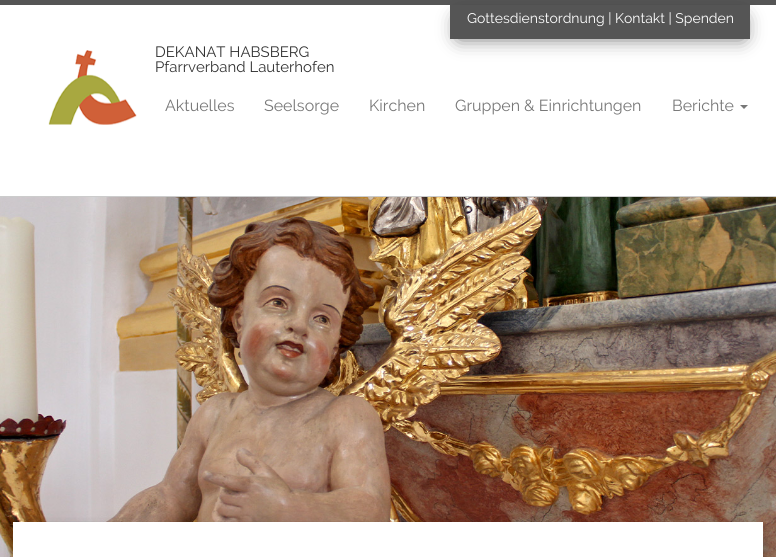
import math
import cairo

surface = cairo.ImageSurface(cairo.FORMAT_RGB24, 776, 557)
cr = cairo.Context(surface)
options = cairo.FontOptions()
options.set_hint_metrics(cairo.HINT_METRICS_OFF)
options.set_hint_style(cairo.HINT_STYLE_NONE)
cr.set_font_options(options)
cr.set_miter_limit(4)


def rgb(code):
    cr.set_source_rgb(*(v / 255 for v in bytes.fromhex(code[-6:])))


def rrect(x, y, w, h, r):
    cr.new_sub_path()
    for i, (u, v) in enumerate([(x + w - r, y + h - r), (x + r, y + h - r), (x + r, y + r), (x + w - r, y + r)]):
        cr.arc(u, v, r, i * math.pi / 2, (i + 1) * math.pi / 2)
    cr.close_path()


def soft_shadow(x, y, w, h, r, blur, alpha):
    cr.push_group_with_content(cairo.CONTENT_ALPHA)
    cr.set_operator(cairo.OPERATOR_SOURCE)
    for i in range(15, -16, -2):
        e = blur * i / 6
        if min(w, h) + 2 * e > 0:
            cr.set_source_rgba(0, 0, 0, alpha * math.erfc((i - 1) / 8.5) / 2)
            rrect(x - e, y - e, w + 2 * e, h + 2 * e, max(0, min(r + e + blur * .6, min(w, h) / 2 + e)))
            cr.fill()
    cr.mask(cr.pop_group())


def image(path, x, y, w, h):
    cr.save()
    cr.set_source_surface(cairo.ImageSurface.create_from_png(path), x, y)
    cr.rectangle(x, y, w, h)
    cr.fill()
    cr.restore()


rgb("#ffffff")
cr.paint()
rgb("#555555")
cr.rectangle(0, 0, 776, 5)
cr.fill()
rgb("#000000")
soft_shadow(459, 19, 284, 18, 0, 10, 0.65)
rgb("#555555")
cr.rectangle(450, 5, 300, 34)
cr.fill()
image("img/1.png", 48, 50, 89, 75)
rgb("#777777")
cr.new_path()
cr.move_to(740, 105)
cr.line_to(748, 105)
cr.line_to(744, 109)
cr.close_path()
cr.fill()
image("img/2.png", 0, 197, 776, 360)
rgb("#cccccc")
cr.rectangle(0, 196, 776, 1)
cr.fill()
rgb("#000000")
soft_shadow(22, 536, 734, 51, 0, 10, 0.65)
rgb("#ffffff")
cr.rectangle(13, 522, 750, 35)
cr.fill()
cr.select_font_face("Raleway")
cr.set_font_size(14)
cr.move_to(467, 23)
cr.show_text("Gottesdienstordnung | Kontakt | Spenden")
cr.set_font_size(15)
rgb("#333333")
cr.move_to(155, 57)
cr.show_text("DEKANAT HABSBERG")
cr.move_to(155, 72)
cr.show_text("Pfarrverband Lauterhofen")
cr.set_font_size(16)
rgb("#777777")
for x, y, s in [
    (165, 111, "Aktuelles"),
    (264, 111, "Seelsorge"),
    (369, 111, "Kirchen"),
    (455, 111, "Gruppen & Einrichtungen"),
    (672, 111, "Berichte"),
]:
    cr.move_to(x, y)
    cr.show_text(s)
surface.write_to_png("page.png")
